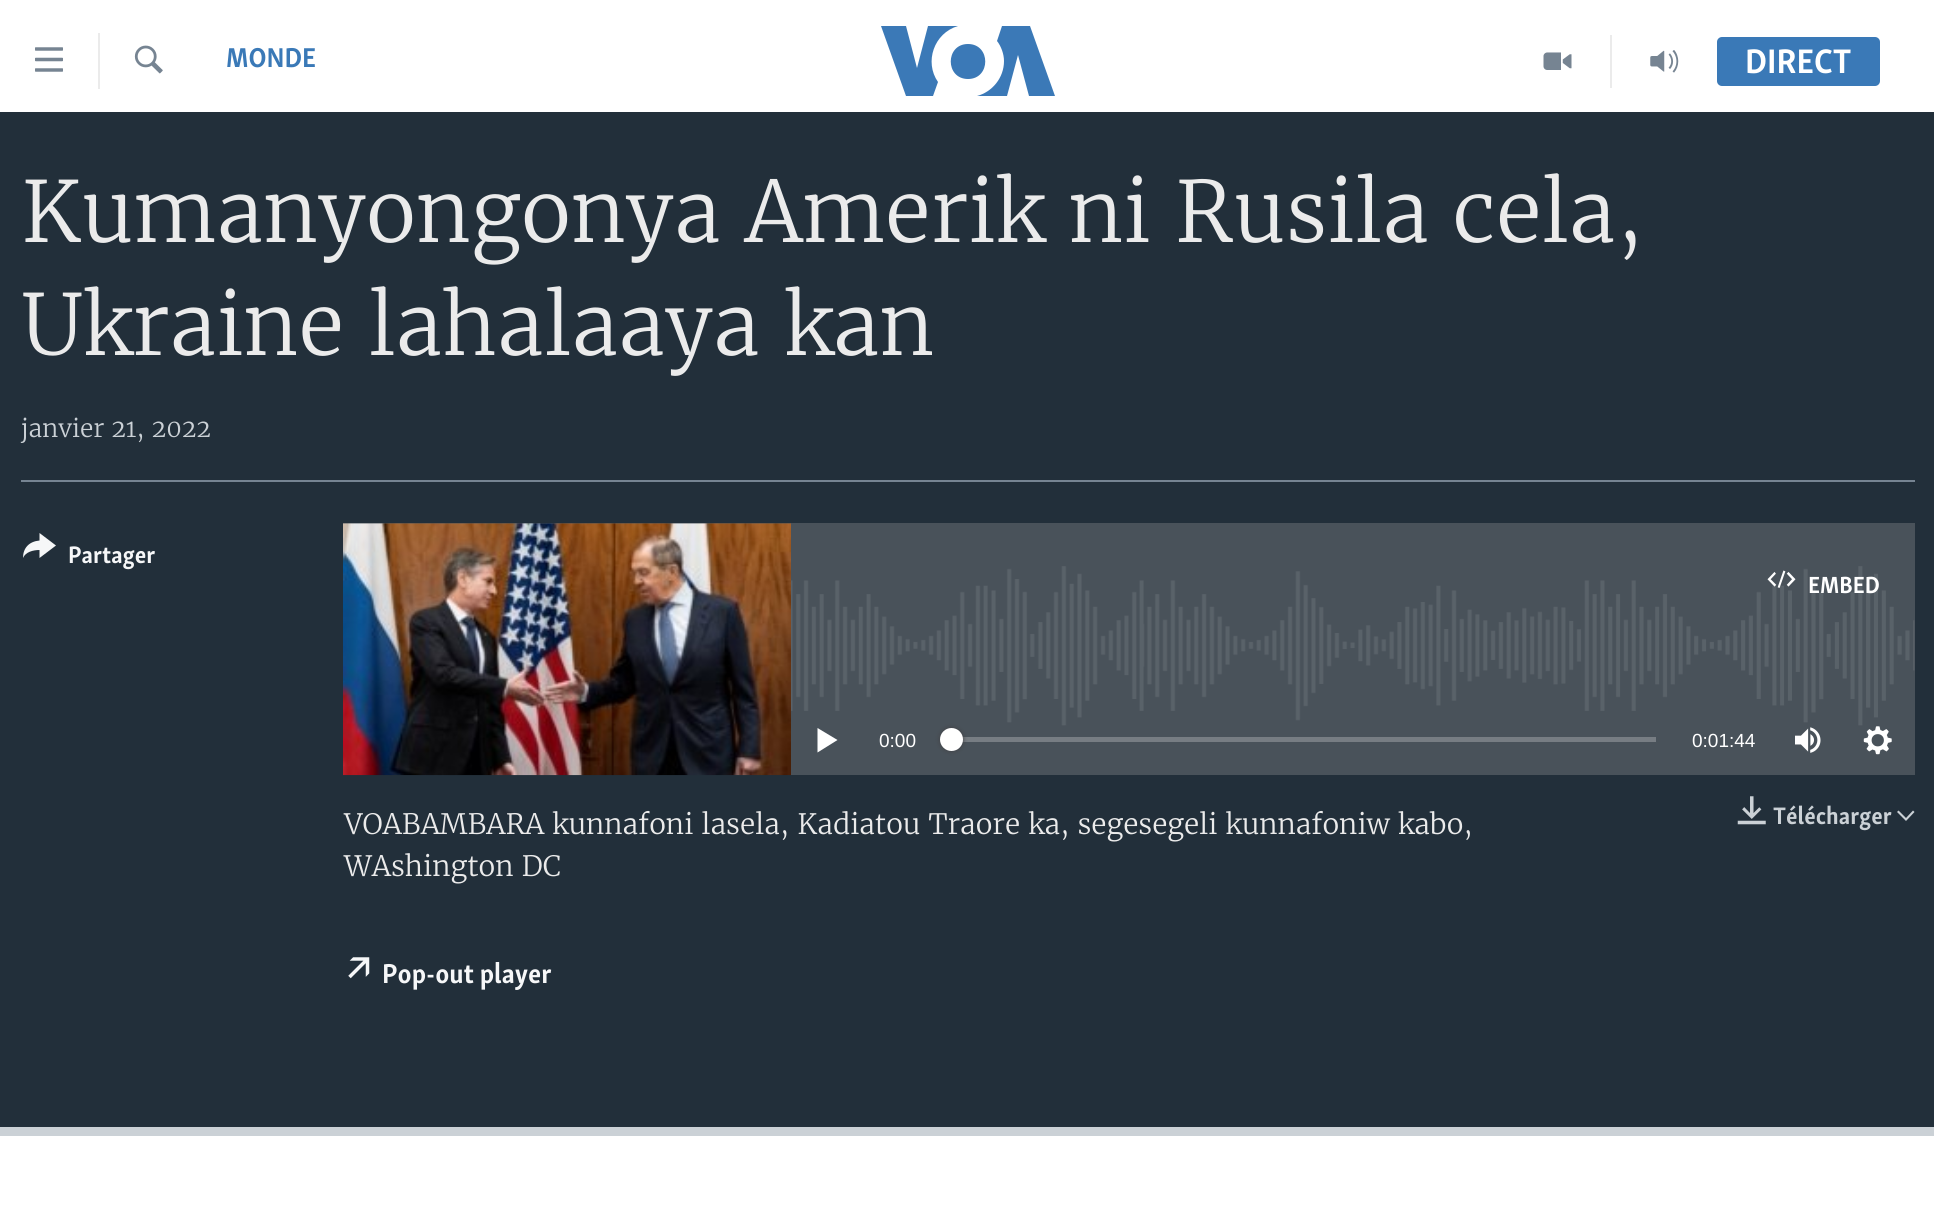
import math
import cairo

surface = cairo.ImageSurface(cairo.FORMAT_RGB24, 1934, 1218)
cr = cairo.Context(surface)
options = cairo.FontOptions()
options.set_hint_metrics(cairo.HINT_METRICS_OFF)
options.set_hint_style(cairo.HINT_STYLE_NONE)
cr.set_font_options(options)
cr.set_miter_limit(4)


def rgb(code):
    cr.set_source_rgb(*(v / 255 for v in bytes.fromhex(code[-6:])))


def rrect(x, y, w, h, r):
    cr.new_sub_path()
    for i, (u, v) in enumerate([(x + w - r, y + h - r), (x + r, y + h - r), (x + r, y + r), (x + w - r, y + r)]):
        cr.arc(u, v, r, i * math.pi / 2, (i + 1) * math.pi / 2)
    cr.close_path()


def soft_shadow(x, y, w, h, r, blur, alpha):
    cr.push_group_with_content(cairo.CONTENT_ALPHA)
    cr.set_operator(cairo.OPERATOR_SOURCE)
    for i in range(15, -16, -2):
        e = blur * i / 6
        if min(w, h) + 2 * e > 0:
            cr.set_source_rgba(0, 0, 0, alpha * math.erfc((i - 1) / 8.5) / 2)
            rrect(x - e, y - e, w + 2 * e, h + 2 * e, max(0, min(r + e + blur * .6, min(w, h) / 2 + e)))
            cr.fill()
    cr.mask(cr.pop_group())


def image(path, x, y, w, h):
    cr.save()
    cr.set_source_surface(cairo.ImageSurface.create_from_png(path), x, y)
    cr.rectangle(x, y, w, h)
    cr.fill()
    cr.restore()


rgb("#ffffff")
cr.paint()
image("img/1.png", 35, 47, 28, 25)
rgb("#ebebeb")
cr.rectangle(98, 33, 2, 56)
cr.fill()
image("img/2.png", 134, 45, 29, 29)
rgb("#3b79b7")
cr.new_path()
cr.move_to(938, 82)
cr.line_to(933, 96)
cr.line_to(906, 96)
cr.line_to(881, 26)
cr.line_to(906, 26)
cr.line_to(917, 68)
cr.line_to(928, 26)
cr.line_to(958, 26)
cr.curve_to(934, 33, 924, 62, 938, 82)
cr.close_path()
cr.move_to(968, 44)
cr.curve_to(945, 44, 945, 79, 968, 79)
cr.curve_to(991, 79, 991, 44, 968, 44)
cr.close_path()
cr.move_to(1004, 61)
cr.curve_to(1004, 78, 992, 92, 977, 96)
cr.line_to(1007, 96)
cr.line_to(1018, 55)
cr.line_to(1029, 96)
cr.line_to(1055, 96)
cr.line_to(1030, 26)
cr.line_to(1002, 26)
cr.line_to(997, 41)
cr.curve_to(1001, 46, 1004, 54, 1004, 61)
cr.close_path()
cr.fill()
rgb("#ebebeb")
cr.rectangle(1610, 35, 2, 53)
cr.fill()
image("img/3.png", 1543, 52, 29, 18)
image("img/4.png", 1650, 50, 29, 23)
rgb("#3a79b7")
rrect(1717, 37, 163, 49, 5)
cr.fill()
for x, y, w, h, color in [
    (0, 112, 1934, 1015, "#222f3a"),
    (0, 1127, 1934, 9, "#cbd1d6"),
    (21, 480, 1894, 2, "#768492"),
]:
    rgb(color)
    cr.rectangle(x, y, w, h)
    cr.fill()
rgb("#f6f7f8")
cr.new_path()
cr.move_to(23, 558)
cr.curve_to(23, 548, 29, 541.5, 39.5, 540.5)
cr.line_to(39.5, 533)
cr.line_to(56, 545.5)
cr.line_to(39.5, 558)
cr.line_to(39.5, 550)
cr.curve_to(33, 550, 25.5, 552, 23, 558)
cr.close_path()
cr.fill()
rgb("#49525a")
cr.rectangle(343, 523, 1572, 252)
cr.fill()
image("img/5.png", 791, 566, 1124, 160)
image("img/6.png", 343, 523, 448, 253)
image("img/7.png", 1767, 570, 29, 18)
rgb("#ffffff")
cr.new_path()
cr.move_to(817.5, 752.5)
cr.line_to(837.5, 740)
cr.line_to(817.5, 728)
cr.close_path()
cr.fill()
rgb("#777d83")
cr.rectangle(962, 737, 694, 5)
cr.fill()
rgb("#414144")
soft_shadow(940, 728, 23, 23, 11.5, 2.5, 1)
rgb("#ffffff")
cr.arc(951.5, 739.5, 11.5, 0, 2 * math.pi)
cr.fill()
image("img/8.png", 1795, 727, 26, 26)
image("img/9.png", 1863, 726, 29, 29)
image("img/10.png", 1737, 796, 29, 29)
rgb("#cbd1d6")
cr.new_path()
cr.move_to(1897, 812)
cr.line_to(1906, 821)
cr.line_to(1914.5, 812)
cr.line_to(1913, 810.5)
cr.line_to(1906, 818)
cr.line_to(1898.5, 810.5)
cr.close_path()
cr.fill()
image("img/11.png", 348, 957, 22, 22)
cr.select_font_face("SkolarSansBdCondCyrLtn", cairo.FONT_SLANT_NORMAL, cairo.FONT_WEIGHT_BOLD)
cr.set_font_size(28)
rgb("#3a79b7")
cr.move_to(226, 67)
cr.show_text("MONDE")
cr.set_font_size(35)
rgb("#ffffff")
cr.move_to(1745, 73)
cr.show_text("DIRECT")
cr.select_font_face("Merriweather Light")
cr.set_font_size(84)
rgb("#ebebeb")
cr.move_to(21, 242)
cr.show_text("Kumanyongonya Amerik ni Rusila cela,")
cr.move_to(21, 355)
cr.show_text("Ukraine lahalaaya kan")
cr.set_font_size(24.5)
rgb("#cbd1d6")
cr.move_to(21, 437)
cr.show_text("janvier 21, 2022")
cr.select_font_face("SkolarSansBdCondCyrLtn", cairo.FONT_SLANT_NORMAL, cairo.FONT_WEIGHT_BOLD)
rgb("#f6f7f8")
cr.move_to(68, 563)
cr.show_text("Partager")
cr.set_font_size(24)
rgb("#ffffff")
cr.move_to(1808, 593)
cr.show_text("EMBED")
cr.select_font_face("Liberation Sans")
cr.set_font_size(19)
cr.move_to(879, 747)
cr.show_text("0:00")
cr.move_to(1692, 747)
cr.show_text("0:01:44")
cr.select_font_face("Merriweather Light")
cr.set_font_size(28)
rgb("#ebebeb")
cr.move_to(344, 834)
cr.show_text("VOABAMBARA kunnafoni lasela, Kadiatou Traore ka, segesegeli kunnafoniw kabo,")
cr.move_to(344, 876)
cr.show_text("WAshington DC")
cr.select_font_face("SkolarSansBdCondCyrLtn", cairo.FONT_SLANT_NORMAL, cairo.FONT_WEIGHT_BOLD)
cr.set_font_size(24.5)
rgb("#cbd1d6")
cr.move_to(1773, 824)
cr.show_text("Télécharger")
cr.set_font_size(28)
rgb("#f6f7f8")
cr.move_to(382, 983)
cr.show_text("Pop-out player")
surface.write_to_png("page.png")
